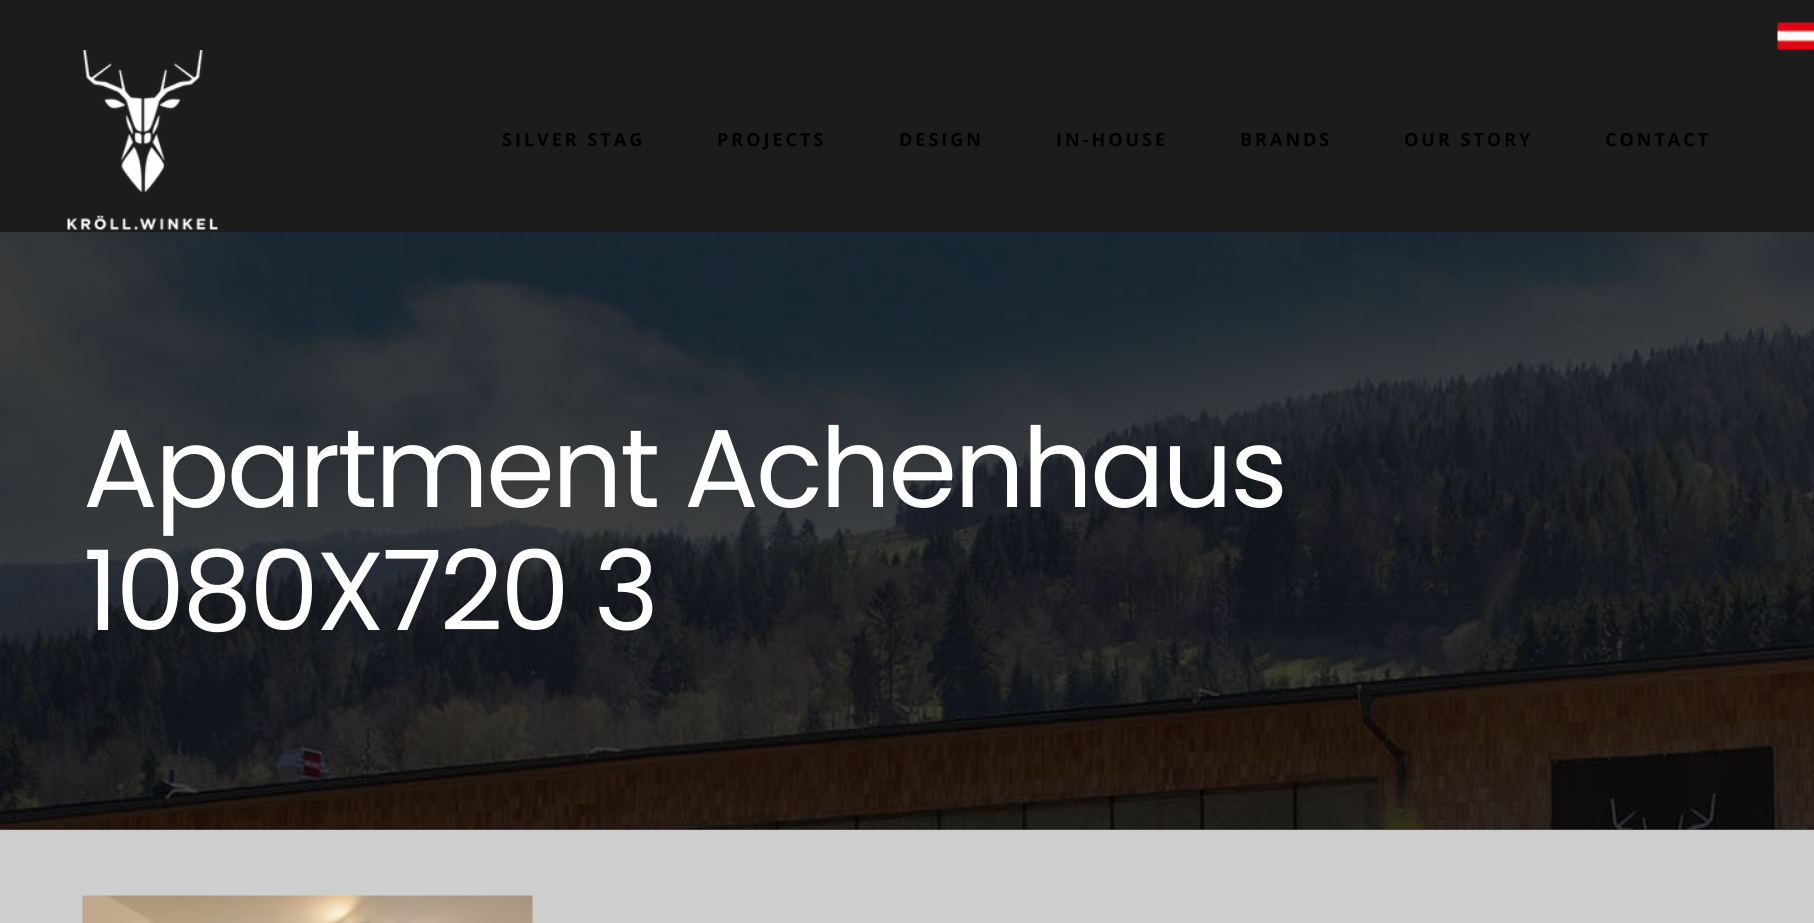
import math
import cairo

surface = cairo.ImageSurface(cairo.FORMAT_RGB24, 1814, 923)
cr = cairo.Context(surface)
options = cairo.FontOptions()
options.set_hint_metrics(cairo.HINT_METRICS_OFF)
options.set_hint_style(cairo.HINT_STYLE_NONE)
cr.set_font_options(options)
cr.set_miter_limit(4)


def rgb(code):
    cr.set_source_rgb(*(v / 255 for v in bytes.fromhex(code[-6:])))


def tracked(x, y, s, letter, word):
    cr.move_to(x, y)
    for ch in s:
        cr.show_text(ch)
        cr.rel_move_to(letter + word * (ch == ' '), 0)


def image(path, x, y, w, h):
    cr.save()
    cr.set_source_surface(cairo.ImageSurface.create_from_png(path), x, y)
    cr.rectangle(x, y, w, h)
    cr.fill()
    cr.restore()


rgb("#cecece")
cr.paint()
rgb("#1c1c1c")
cr.rectangle(0, 0, 1814, 232)
cr.fill()
image("img/1.png", 1777, 22, 37, 28)
image("img/2.png", 67, 50, 151, 180)
rgb("#5d5d5d")
cr.rectangle(0, 829, 1814, 1)
cr.fill()
image("img/3.png", 0, 232, 1814, 598)
image("img/4.png", 82, 895, 451, 28)
cr.select_font_face("Open Sans", cairo.FONT_SLANT_NORMAL, cairo.FONT_WEIGHT_BOLD)
cr.set_font_size(18)
rgb("#000000")
for x, y, s in [
    (502, 146, "SILVER STAG"),
    (717, 146, "PROJECTS"),
    (899, 146, "DESIGN"),
    (1056, 146, "IN-HOUSE"),
    (1240, 146, "BRANDS"),
    (1404, 146, "OUR STORY"),
    (1605, 146, "CONTACT"),
]:
    tracked(x, y, s, 3, 0)
cr.select_font_face("Poppins")
cr.set_font_size(111)
rgb("#ffffff")
tracked(83, 507, "Apartment Achenhaus", -3, 0)
tracked(83, 630, "1080X720 3", -3, 0)
surface.write_to_png("page.png")
